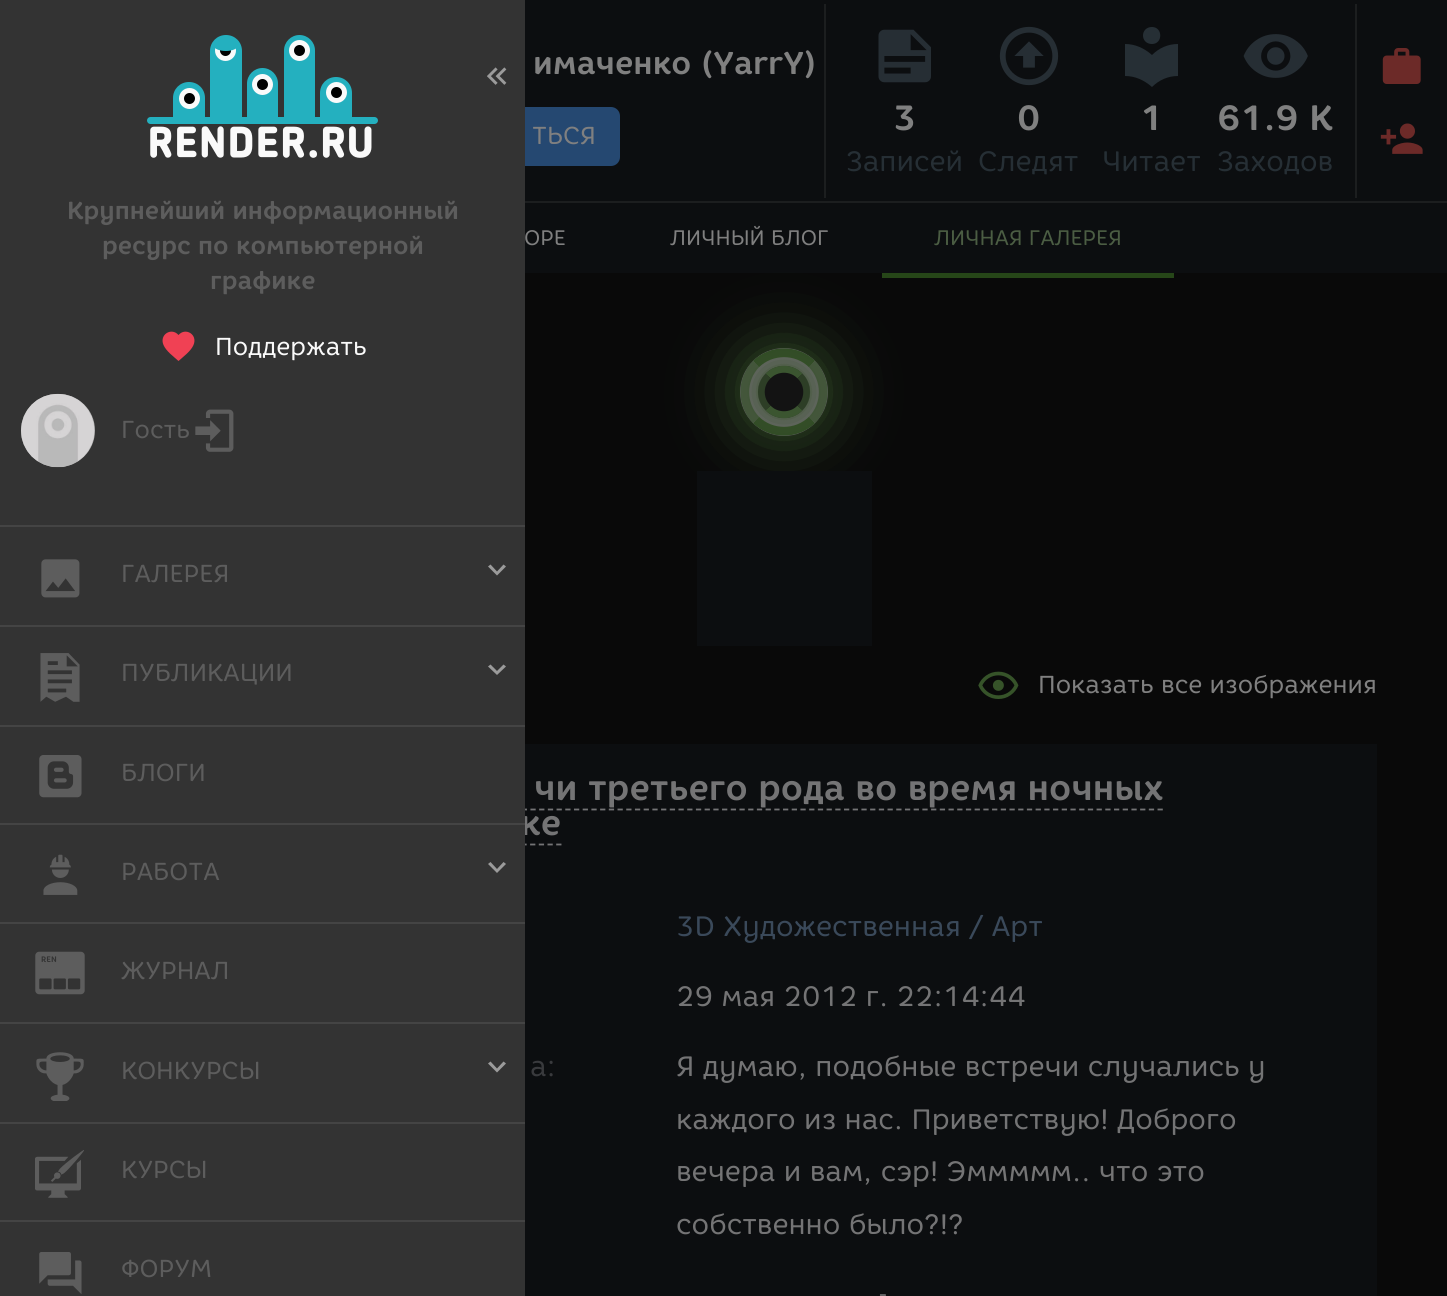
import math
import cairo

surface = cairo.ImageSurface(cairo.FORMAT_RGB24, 1447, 1296)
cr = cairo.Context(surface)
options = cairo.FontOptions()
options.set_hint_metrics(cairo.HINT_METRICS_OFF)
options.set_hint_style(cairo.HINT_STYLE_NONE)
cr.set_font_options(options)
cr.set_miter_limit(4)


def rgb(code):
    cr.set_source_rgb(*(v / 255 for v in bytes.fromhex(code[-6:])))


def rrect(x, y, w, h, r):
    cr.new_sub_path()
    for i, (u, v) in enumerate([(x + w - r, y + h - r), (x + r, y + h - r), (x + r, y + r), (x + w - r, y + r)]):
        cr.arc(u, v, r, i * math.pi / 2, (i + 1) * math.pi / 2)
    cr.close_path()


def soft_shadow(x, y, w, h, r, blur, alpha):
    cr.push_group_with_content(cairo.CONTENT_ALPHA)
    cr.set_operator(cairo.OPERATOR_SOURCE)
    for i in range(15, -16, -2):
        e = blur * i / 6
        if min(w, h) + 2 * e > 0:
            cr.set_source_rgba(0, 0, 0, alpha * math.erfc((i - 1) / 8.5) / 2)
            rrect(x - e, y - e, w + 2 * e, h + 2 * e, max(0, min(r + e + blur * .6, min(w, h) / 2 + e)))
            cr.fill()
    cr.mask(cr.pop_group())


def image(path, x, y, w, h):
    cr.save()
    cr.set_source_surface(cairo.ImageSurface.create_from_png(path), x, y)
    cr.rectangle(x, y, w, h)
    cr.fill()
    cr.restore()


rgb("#090909")
cr.paint()
rgb("#0c0e10")
cr.rectangle(525, 0, 922, 201)
cr.fill()
rgb("#254871")
rrect(346, 108, 273, 57, 8)
cr.fill_preserve()
cr.stroke()
rgb("#1c1e1f")
cr.rectangle(824, 4, 2, 194)
cr.fill()
image("img/13.png", 878, 29, 53, 54)
image("img/14.png", 999, 26, 60, 60)
rgb("#262f35")
cr.new_path()
cr.move_to(1152, 44)
cr.curve_to(1163, 44, 1163, 27, 1152, 27)
cr.curve_to(1140, 27, 1140, 44, 1152, 44)
cr.close_path()
cr.move_to(1152, 55)
cr.curve_to(1144, 48, 1135, 44, 1125, 44)
cr.line_to(1125, 76)
cr.curve_to(1135, 76, 1144, 80, 1152, 87)
cr.curve_to(1159, 80, 1168, 76, 1178, 76)
cr.line_to(1178, 44)
cr.curve_to(1168, 44, 1159, 48, 1152, 55)
cr.close_path()
cr.fill()
image("img/15.png", 1243, 34, 65, 44)
rgb("#1c1e1f")
cr.rectangle(1355, 4, 2, 194)
cr.fill()
image("img/16.png", 1382, 48, 39, 36)
image("img/17.png", 1380, 123, 43, 31)
for x, y, w, h, color in [
    (525, 201, 922, 2, "#1c1e1f"),
    (525, 203, 922, 70, "#0c0e10"),
    (882, 273, 292, 5, "#264618"),
]:
    rgb(color)
    cr.rectangle(x, y, w, h)
    cr.fill()
cr.save()
cr.set_fill_rule(cairo.FILL_RULE_EVEN_ODD)
cr.new_path()
cr.move_to(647, 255)
cr.line_to(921, 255)
cr.line_to(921, 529)
cr.line_to(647, 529)
cr.close_path()
cr.move_to(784, 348)
cr.curve_to(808.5, 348, 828, 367.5, 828, 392)
cr.curve_to(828, 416.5, 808.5, 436, 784, 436)
cr.curve_to(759.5, 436, 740, 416.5, 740, 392)
cr.curve_to(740, 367.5, 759.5, 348, 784, 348)
cr.close_path()
cr.clip()
rgb("#324c26")
soft_shadow(740, 348, 88, 88, 44, 30.5, 1)
cr.restore()
cr.set_source_rgba(0.455, 0.455, 0.455, 0.9)
cr.arc(784, 392, 44, 0, 2 * math.pi)
cr.fill()
cr.new_path()
cr.move_to(756, 364)
cr.curve_to(771.5, 349, 796.5, 349, 812, 364)
rgb("#324c26")
cr.set_line_width(8.8)
cr.stroke()
cr.new_path()
cr.move_to(812, 364)
cr.curve_to(827, 379.5, 827, 404.5, 812, 420)
cr.set_source_rgba(0.196, 0.298, 0.149, 0.65)
cr.stroke()
cr.new_path()
cr.move_to(812, 420)
cr.curve_to(796.5, 435, 771.5, 435, 756, 420)
rgb("#324c26")
cr.stroke()
cr.new_path()
cr.move_to(756, 420)
cr.curve_to(741, 404.5, 741, 379.5, 756, 364)
cr.set_source_rgba(0.196, 0.298, 0.149, 0.65)
cr.stroke()
cr.save()
cr.set_fill_rule(cairo.FILL_RULE_EVEN_ODD)
cr.new_path()
cr.move_to(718, 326)
cr.line_to(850, 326)
cr.line_to(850, 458)
cr.line_to(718, 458)
cr.close_path()
cr.move_to(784, 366)
cr.curve_to(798.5, 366, 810, 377.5, 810, 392)
cr.curve_to(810, 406.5, 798.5, 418, 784, 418)
cr.curve_to(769.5, 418, 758, 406.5, 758, 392)
cr.curve_to(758, 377.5, 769.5, 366, 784, 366)
cr.close_path()
cr.clip()
rgb("#365329")
soft_shadow(758, 366, 52, 52, 26, 13, 0.9)
cr.restore()
cr.set_source_rgba(0.043, 0.043, 0.043, 0.9)
cr.arc(784, 392, 26, 0, 2 * math.pi)
cr.fill()
cr.new_path()
cr.move_to(768, 376)
cr.curve_to(776.5, 367, 791.5, 367, 800, 376)
rgb("#3b5530")
cr.set_line_width(7)
cr.stroke()
cr.new_path()
cr.move_to(800, 376)
cr.curve_to(809, 384.5, 809, 399.5, 800, 408)
cr.set_source_rgba(0.231, 0.333, 0.188, 0.65)
cr.stroke()
cr.new_path()
cr.move_to(800, 408)
cr.curve_to(791.5, 417, 776.5, 417, 768, 408)
rgb("#3b5530")
cr.stroke()
cr.new_path()
cr.move_to(768, 408)
cr.curve_to(759, 399.5, 759, 384.5, 768, 376)
cr.set_source_rgba(0.231, 0.333, 0.188, 0.65)
cr.stroke()
rgb("#0c0e10")
cr.rectangle(697, 471, 175, 175)
cr.fill()
image("img/18.png", 978, 671, 41, 28)
cr.rectangle(525, 744, 852, 552)
cr.fill()
cr.new_path()
cr.move_to(243, 809.5)
cr.line_to(1164, 809.5)
rgb("#747475")
cr.set_line_width(1.8)
cr.set_dash([5.25, 3.46])
cr.stroke()
cr.new_path()
cr.move_to(243, 844.5)
cr.line_to(562, 844.5)
cr.set_dash([5.25, 3.45])
cr.stroke()
cr.select_font_face("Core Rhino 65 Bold", cairo.FONT_SLANT_NORMAL, cairo.FONT_WEIGHT_BOLD)
cr.set_font_size(31.5)
rgb("#808080")
cr.move_to(533, 74)
cr.show_text("имаченко (YarrY)")
cr.select_font_face("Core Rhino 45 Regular")
cr.set_font_size(24.5)
cr.move_to(532, 144)
cr.show_text("ТЬСЯ")
cr.select_font_face("Core Rhino 65 Bold", cairo.FONT_SLANT_NORMAL, cairo.FONT_WEIGHT_BOLD)
cr.set_font_size(35)
cr.move_to(893, 130)
cr.show_text("3")
cr.select_font_face("Core Rhino 45 Regular")
cr.set_font_size(28)
rgb("#262f35")
cr.move_to(846, 171)
cr.show_text("Записей")
cr.select_font_face("Core Rhino 65 Bold", cairo.FONT_SLANT_NORMAL, cairo.FONT_WEIGHT_BOLD)
cr.set_font_size(35)
rgb("#808080")
cr.move_to(1017, 130)
cr.show_text("0")
cr.select_font_face("Core Rhino 45 Regular")
cr.set_font_size(28)
rgb("#262f35")
cr.move_to(978, 171)
cr.show_text("Следят")
cr.select_font_face("Core Rhino 65 Bold", cairo.FONT_SLANT_NORMAL, cairo.FONT_WEIGHT_BOLD)
cr.set_font_size(35)
rgb("#808080")
cr.move_to(1140, 130)
cr.show_text("1")
cr.select_font_face("Core Rhino 45 Regular")
cr.set_font_size(28)
rgb("#262f35")
cr.move_to(1102, 171)
cr.show_text("Читает")
cr.select_font_face("Core Rhino 65 Bold", cairo.FONT_SLANT_NORMAL, cairo.FONT_WEIGHT_BOLD)
cr.set_font_size(35)
rgb("#808080")
cr.move_to(1217, 130)
cr.show_text("61.9 K")
cr.select_font_face("Core Rhino 45 Regular")
cr.set_font_size(28)
rgb("#262f35")
cr.move_to(1217, 171)
cr.show_text("Заходов")
cr.set_font_size(21)
rgb("#808080")
cr.move_to(524, 245)
cr.show_text("ОРЕ")
cr.move_to(670, 245)
cr.show_text("ЛИЧНЫЙ БЛОГ")
rgb("#4b5d43")
cr.move_to(934, 245)
cr.show_text("ЛИЧНАЯ ГАЛЕРЕЯ")
cr.set_font_size(24.5)
rgb("#808080")
cr.move_to(1038, 693)
cr.show_text("Показать все изображения")
cr.select_font_face("Core Rhino 65 Bold", cairo.FONT_SLANT_NORMAL, cairo.FONT_WEIGHT_BOLD)
cr.set_font_size(35)
rgb("#747475")
cr.move_to(534, 800)
cr.show_text("чи третьего рода во время ночных")
cr.move_to(520, 835)
cr.show_text("ке")
rgb("#333333")
cr.rectangle(0, 0, 525, 1296)
cr.fill()
image("img/12.png", 39, 1252, 43, 42)
cr.select_font_face("Core Rhino 45 Regular")
cr.set_font_size(24.5)
rgb("#5d5d5d")
cr.move_to(121, 1277)
cr.show_text("ФОРУМ")
rgb("#444444")
cr.rectangle(0, 1220, 525, 2)
cr.fill()
image("img/11.png", 35, 1150, 49, 48)
rgb("#5d5d5d")
cr.move_to(121, 1178)
cr.show_text("КУРСЫ")
rgb("#444444")
cr.rectangle(0, 1122, 525, 2)
cr.fill()
rgb("#9b9b9b")
cr.new_path()
cr.move_to(490.5, 1061.5)
cr.line_to(497, 1068.5)
cr.line_to(503.5, 1061.5)
cr.line_to(506, 1063.5)
cr.line_to(497, 1072.5)
cr.line_to(488, 1063.5)
cr.close_path()
cr.fill()
image("img/10.png", 36, 1052, 48, 49)
rgb("#5d5d5d")
cr.move_to(121, 1079)
cr.show_text("КОНКУРСЫ")
rgb("#444444")
cr.rectangle(0, 1022, 525, 2)
cr.fill()
image("img/9.png", 35, 951, 50, 44)
cr.select_font_face("Core Rhino 65 Bold", cairo.FONT_SLANT_NORMAL, cairo.FONT_WEIGHT_BOLD)
cr.set_font_size(8)
rgb("#333333")
cr.move_to(41, 962)
cr.show_text("REN")
cr.select_font_face("Core Rhino 45 Regular")
cr.set_font_size(24.5)
rgb("#5d5d5d")
cr.move_to(121, 979)
cr.show_text("ЖУРНАЛ")
rgb("#444444")
cr.rectangle(0, 922, 525, 2)
cr.fill()
rgb("#9b9b9b")
cr.new_path()
cr.move_to(490.5, 862)
cr.line_to(497, 869)
cr.line_to(503.5, 862)
cr.line_to(506, 864)
cr.line_to(497, 873)
cr.line_to(488, 864)
cr.close_path()
cr.fill()
image("img/8.png", 43, 854, 35, 41)
rgb("#5d5d5d")
cr.move_to(121, 880)
cr.show_text("РАБОТА")
rgb("#444444")
cr.rectangle(0, 823, 525, 2)
cr.fill()
image("img/7.png", 39, 755, 43, 43)
rgb("#5d5d5d")
cr.move_to(121, 781)
cr.show_text("БЛОГИ")
rgb("#444444")
cr.rectangle(0, 725, 525, 2)
cr.fill()
rgb("#9b9b9b")
cr.new_path()
cr.move_to(490.5, 664.5)
cr.line_to(497, 671)
cr.line_to(503.5, 664.5)
cr.line_to(506, 666.5)
cr.line_to(497, 675)
cr.line_to(488, 666.5)
cr.close_path()
cr.fill()
image("img/6.png", 40, 653, 40, 49)
rgb("#5d5d5d")
cr.move_to(121, 681)
cr.show_text("ПУБЛИКАЦИИ")
rgb("#444444")
cr.rectangle(0, 625, 525, 2)
cr.fill()
rgb("#9b9b9b")
cr.new_path()
cr.move_to(490.5, 564.5)
cr.line_to(497, 571.5)
cr.line_to(503.5, 564.5)
cr.line_to(506, 566.5)
cr.line_to(497, 575.5)
cr.line_to(488, 566.5)
cr.close_path()
cr.fill()
image("img/5.png", 41, 559, 39, 39)
rgb("#5d5d5d")
cr.move_to(121, 582)
cr.show_text("ГАЛЕРЕЯ")
rgb("#444444")
cr.rectangle(0, 525, 525, 2)
cr.fill()
rgb("#aaaaaa")
rrect(21, 394, 74, 73, 36.5)
cr.fill()
image("img/3.png", 21, 393, 74, 75)
image("img/4.png", 195, 409, 39, 43)
rgb("#5d5d5d")
cr.move_to(121, 438)
cr.show_text("Гость")
image("img/1.png", 487, 67, 20, 18)
rgb("#24b0bf")
rrect(147, 117, 231, 7, 3.5)
cr.fill()
cr.new_path()
cr.move_to(336, 77)
cr.curve_to(345, 77, 352, 84, 352, 93)
cr.line_to(352, 124)
cr.line_to(320, 124)
cr.line_to(320, 93)
cr.curve_to(320, 84, 327, 77, 336, 77)
cr.close_path()
cr.fill()
rgb("#000000")
cr.arc(336.5, 92.5, 8, 0, 2 * math.pi)
cr.fill_preserve()
rgb("#fafafa")
cr.set_line_width(5)
cr.set_dash([])
cr.stroke()
rgb("#24b0bf")
cr.new_path()
cr.move_to(299.5, 35)
cr.curve_to(308, 35, 315, 42, 315, 50.5)
cr.line_to(315, 124)
cr.line_to(284, 124)
cr.line_to(284, 50.5)
cr.curve_to(284, 42, 291, 35, 299.5, 35)
cr.close_path()
cr.fill()
rgb("#000000")
cr.arc(299.5, 50.5, 8, 0, 2 * math.pi)
cr.fill_preserve()
rgb("#fafafa")
cr.stroke()
rgb("#24b0bf")
cr.new_path()
cr.move_to(262.5, 68)
cr.curve_to(271, 68, 278, 75, 278, 83.5)
cr.line_to(278, 124)
cr.line_to(247, 124)
cr.line_to(247, 83.5)
cr.curve_to(247, 75, 254, 68, 262.5, 68)
cr.close_path()
cr.fill()
rgb("#000000")
cr.arc(262.5, 84.5, 8, 0, 2 * math.pi)
cr.fill_preserve()
rgb("#fafafa")
cr.stroke()
rgb("#24b0bf")
cr.new_path()
cr.move_to(226, 35)
cr.curve_to(235, 35, 242, 42, 242, 51)
cr.line_to(242, 124)
cr.line_to(210, 124)
cr.line_to(210, 51)
cr.curve_to(210, 42, 217, 35, 226, 35)
cr.close_path()
cr.fill()
rgb("#000000")
cr.arc(225.5, 50.5, 8, 0, 2 * math.pi)
cr.fill_preserve()
rgb("#fafafa")
cr.stroke()
rgb("#24b0bf")
cr.new_path()
cr.move_to(226, 38.5)
cr.curve_to(232.5, 38.5, 238, 41, 238, 43.5)
cr.line_to(238, 45.5)
cr.curve_to(238, 48.5, 232.5, 51, 226, 51)
cr.curve_to(219, 51, 213.5, 48.5, 213.5, 45.5)
cr.line_to(213.5, 43.5)
cr.curve_to(213.5, 41, 219, 38.5, 226, 38.5)
cr.close_path()
cr.fill()
cr.new_path()
cr.move_to(189, 82)
cr.curve_to(198, 82, 205, 89, 205, 98)
cr.line_to(205, 124)
cr.line_to(173, 124)
cr.line_to(173, 98)
cr.curve_to(173, 89, 180, 82, 189, 82)
cr.close_path()
cr.fill()
rgb("#000000")
cr.arc(189.5, 98.5, 8, 0, 2 * math.pi)
cr.fill_preserve()
rgb("#fafafa")
cr.stroke()
image("img/2.png", 150, 126, 222, 32)
cr.move_to(215, 355)
cr.show_text("Поддержать")
rgb("#f04154")
cr.new_path()
cr.move_to(178.5, 361)
cr.curve_to(173.5, 356.5, 166, 351, 163.5, 345)
cr.curve_to(159, 334.5, 171.5, 327, 178.5, 335)
cr.curve_to(185.5, 327, 198, 334.5, 193.5, 345)
cr.curve_to(191, 351, 183.5, 356.5, 178.5, 361)
cr.close_path()
cr.fill()
cr.select_font_face("Core Rhino 65 Bold", cairo.FONT_SLANT_NORMAL, cairo.FONT_WEIGHT_BOLD)
rgb("#5d5d5d")
for x, y, s in [
    (210, 289, "графике"),
    (102, 254, "ресурс по компьютерной"),
    (67, 219, "Крупнейший информационный"),
]:
    cr.move_to(x, y)
    cr.show_text(s)
cr.select_font_face("Core Rhino 45 Regular")
cr.set_font_size(28)
rgb("#3a495a")
cr.move_to(676, 936)
cr.show_text("3D Художественная / Арт")
rgb("#747475")
cr.move_to(676, 1006)
cr.show_text("29 мая 2012 г. 22:14:44")
rgb("#393a3d")
cr.move_to(530, 1076)
cr.show_text("а:")
rgb("#747475")
for x, y, s in [
    (676, 1076, "Я думаю, подобные встречи случались у"),
    (676, 1129, "каждого из нас. Приветствую! Доброго"),
    (676, 1181, "вечера и вам, сэр! Эммммм.. что это"),
    (676, 1234, "собственно было?!?"),
]:
    cr.move_to(x, y)
    cr.show_text(s)
cr.set_font_size(21)
cr.move_to(878, 1302)
cr.show_text("-")
surface.write_to_png("page.png")
